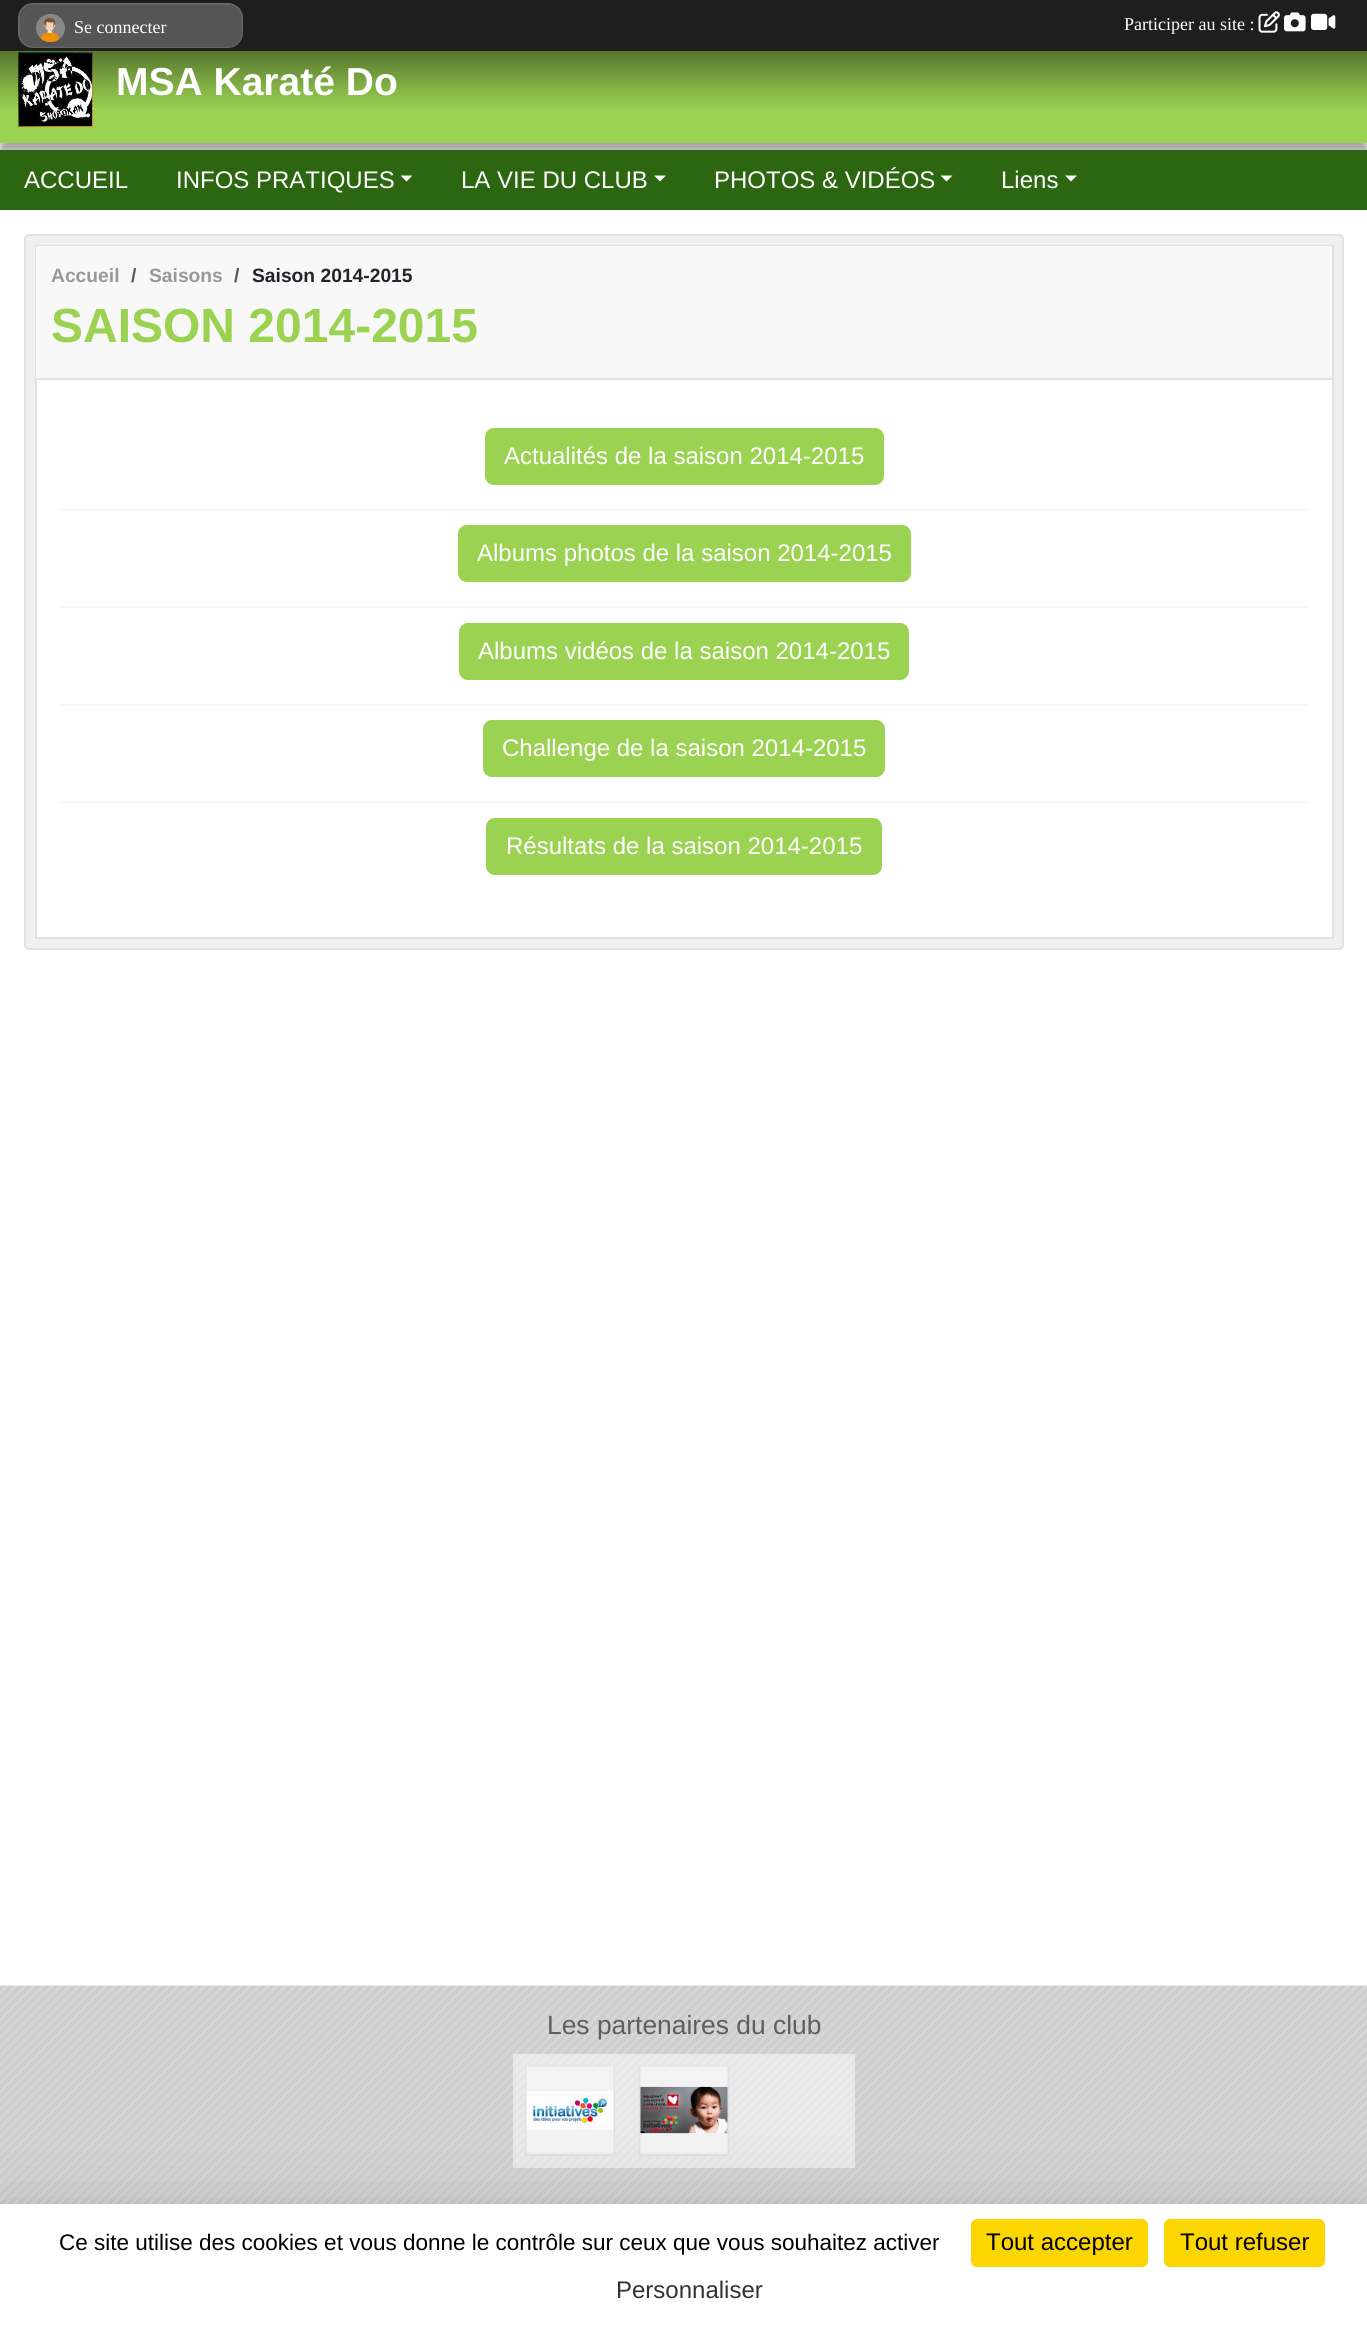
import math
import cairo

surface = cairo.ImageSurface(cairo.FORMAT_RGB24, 1367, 2329)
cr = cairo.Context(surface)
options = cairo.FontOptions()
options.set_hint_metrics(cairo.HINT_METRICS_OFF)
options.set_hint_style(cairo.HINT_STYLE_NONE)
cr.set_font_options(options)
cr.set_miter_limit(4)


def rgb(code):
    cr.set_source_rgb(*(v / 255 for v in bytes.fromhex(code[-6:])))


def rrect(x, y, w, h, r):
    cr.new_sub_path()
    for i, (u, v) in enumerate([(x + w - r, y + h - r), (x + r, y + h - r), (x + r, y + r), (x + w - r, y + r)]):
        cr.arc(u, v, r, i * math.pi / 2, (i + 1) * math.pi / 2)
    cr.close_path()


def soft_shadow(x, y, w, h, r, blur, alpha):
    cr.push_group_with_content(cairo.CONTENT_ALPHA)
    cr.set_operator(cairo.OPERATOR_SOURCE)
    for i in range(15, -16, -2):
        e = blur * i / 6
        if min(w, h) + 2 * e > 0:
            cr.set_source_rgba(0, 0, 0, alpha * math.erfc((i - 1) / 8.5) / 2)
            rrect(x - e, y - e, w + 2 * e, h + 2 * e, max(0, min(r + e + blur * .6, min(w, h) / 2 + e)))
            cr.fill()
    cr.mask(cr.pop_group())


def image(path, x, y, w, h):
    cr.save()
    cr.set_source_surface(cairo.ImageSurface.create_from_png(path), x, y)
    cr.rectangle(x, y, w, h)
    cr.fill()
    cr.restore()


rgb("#ffffff")
cr.paint()
rgb("#505050")
soft_shadow(0, 48, 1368, 105, 0, 4, 0.5)
rgb("#1e1e1e")
cr.rectangle(0, 0, 1367, 51)
cr.fill()
rgb("#333333")
rrect(19, 4, 223, 43, 14)
cr.fill_preserve()
rgb("#666666")
cr.stroke()
rgb("#555555")
rrect(20, 5, 222, 42, 14)
cr.fill()
image("img/1.png", 36, 14, 29, 28)
image("img/2.png", 1258, 11, 22, 22)
image("img/3.png", 1284, 12, 22, 20)
image("img/4.png", 1311, 13, 25, 17)
rgb("#9bd252")
cr.rectangle(0, 51, 1367, 92)
cr.fill()
image("img/5.png", 0, 51, 1367, 57)
image("img/6.png", 18, 52, 75, 75)
rgb("#2c6611")
cr.rectangle(0, 150, 1367, 60)
cr.fill()
rgb("#ffffff")
cr.new_path()
cr.move_to(400.5, 175.5)
cr.line_to(412.5, 175.5)
cr.line_to(406.5, 181.5)
cr.close_path()
cr.fill()
cr.new_path()
cr.move_to(654, 175.5)
cr.line_to(666, 175.5)
cr.line_to(660, 181.5)
cr.close_path()
cr.fill()
cr.new_path()
cr.move_to(940.5, 175.5)
cr.line_to(952.5, 175.5)
cr.line_to(946.5, 181.5)
cr.close_path()
cr.fill()
cr.new_path()
cr.move_to(1065, 175.5)
cr.line_to(1077, 175.5)
cr.line_to(1071, 181.5)
cr.close_path()
cr.fill()
rgb("#f0f0f0")
rrect(25, 235, 1318, 714, 4)
cr.fill_preserve()
rgb("#e1e1e1")
cr.stroke()
rgb("#ffffff")
cr.rectangle(37, 380, 1295, 557)
cr.fill()
cr.rectangle(36, 246, 1297, 692)
rgb("#e1e1e1")
cr.stroke()
rgb("#f8f8f8")
cr.rectangle(36, 246, 1296, 132)
cr.fill()
rgb("#e1e1e1")
cr.rectangle(36, 378, 1296, 2)
cr.fill()
rgb("#9bd252")
rrect(486, 429, 397, 55, 8)
cr.fill_preserve()
cr.stroke()
rgb("#f8f8f8")
cr.rectangle(60, 509, 1248, 2)
cr.fill()
rgb("#9bd252")
rrect(459, 526, 451, 55, 8)
cr.fill_preserve()
cr.stroke()
rgb("#f8f8f8")
cr.rectangle(60, 606, 1248, 2)
cr.fill()
rgb("#9bd252")
rrect(460, 624, 448, 55, 8)
cr.fill_preserve()
cr.stroke()
rgb("#f8f8f8")
cr.rectangle(60, 704, 1248, 2)
cr.fill()
rgb("#9bd252")
rrect(484, 721, 400, 55, 8)
cr.fill_preserve()
cr.stroke()
rgb("#f8f8f8")
cr.rectangle(60, 801, 1248, 2)
cr.fill()
rgb("#9bd252")
rrect(487, 819, 394, 55, 8)
cr.fill_preserve()
cr.stroke()
image("img/7.png", 0, 1985, 1367, 219)
cr.set_source_rgba(1, 1, 1, 0.5)
cr.rectangle(513, 2054, 114, 114)
cr.fill()
cr.rectangle(526, 2067, 88, 88)
rgb("#dee2e6")
cr.stroke()
image("img/8.png", 526, 2066, 88, 88)
cr.set_source_rgba(1, 1, 1, 0.5)
cr.rectangle(627, 2054, 114, 114)
cr.fill()
cr.rectangle(640, 2067, 88, 88)
rgb("#dee2e6")
cr.stroke()
image("img/9.png", 640, 2066, 88, 88)
cr.set_source_rgba(1, 1, 1, 0.5)
cr.rectangle(741, 2054, 114, 114)
cr.fill()
rgb("#000000")
soft_shadow(0, 2234, 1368, 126, 0, 45, 0.25)
rgb("#ffffff")
cr.rectangle(0, 2204, 1367, 125)
cr.fill()
rgb("#fbd600")
rrect(971, 2219, 177, 48, 6)
cr.fill()
rrect(1164, 2219, 161, 48, 6)
cr.fill()
cr.select_font_face("Liberation Serif")
cr.set_font_size(18)
rgb("#ffffff")
cr.move_to(74, 33)
cr.show_text("Se connecter")
cr.move_to(1124, 30)
cr.show_text("Participer au site :")
cr.select_font_face("Liberation Sans", cairo.FONT_SLANT_NORMAL, cairo.FONT_WEIGHT_BOLD)
cr.set_font_size(39)
cr.move_to(116, 95)
cr.show_text("MSA Karaté Do")
cr.select_font_face("Liberation Sans")
cr.set_font_size(24)
for x, y, s in [
    (24, 188, "ACCUEIL"),
    (176, 188, "INFOS PRATIQUES"),
    (461, 188, "LA VIE DU CLUB"),
    (714, 188, "PHOTOS & VIDÉOS"),
    (1001, 188, "Liens"),
]:
    cr.move_to(x, y)
    cr.show_text(s)
cr.select_font_face("Liberation Sans", cairo.FONT_SLANT_NORMAL, cairo.FONT_WEIGHT_BOLD)
cr.set_font_size(19.25)
rgb("#999999")
cr.move_to(51, 282)
cr.show_text("Accueil")
rgb("#575a5d")
cr.move_to(131, 282)
cr.show_text("/")
rgb("#999999")
cr.move_to(149, 282)
cr.show_text("Saisons")
rgb("#575a5d")
cr.move_to(234, 282)
cr.show_text("/")
rgb("#212529")
cr.move_to(252, 282)
cr.show_text("Saison 2014-2015")
cr.set_font_size(48)
rgb("#9bd252")
cr.move_to(51, 342)
cr.show_text("SAISON 2014-2015")
cr.select_font_face("Liberation Sans")
cr.set_font_size(24)
rgb("#ffffff")
for x, y, s in [
    (504, 464, "Actualités de la saison 2014-2015"),
    (477, 561, "Albums photos de la saison 2014-2015"),
    (478, 659, "Albums vidéos de la saison 2014-2015"),
    (502, 756, "Challenge de la saison 2014-2015"),
    (506, 854, "Résultats de la saison 2014-2015"),
]:
    cr.move_to(x, y)
    cr.show_text(s)
cr.set_font_size(26.4)
rgb("#5e5e5e")
cr.move_to(547, 2034)
cr.show_text("Les partenaires du club")
cr.set_font_size(22.5)
rgb("#000000")
cr.move_to(59, 2250)
cr.show_text("Ce site utilise des cookies et vous donne le contrôle sur ceux que vous souhaitez activer")
cr.set_font_size(24)
cr.move_to(986, 2250)
cr.show_text("Tout accepter")
cr.move_to(1180, 2250)
cr.show_text("Tout refuser")
rgb("#333333")
cr.move_to(616, 2298)
cr.show_text("Personnaliser")
surface.write_to_png("page.png")
